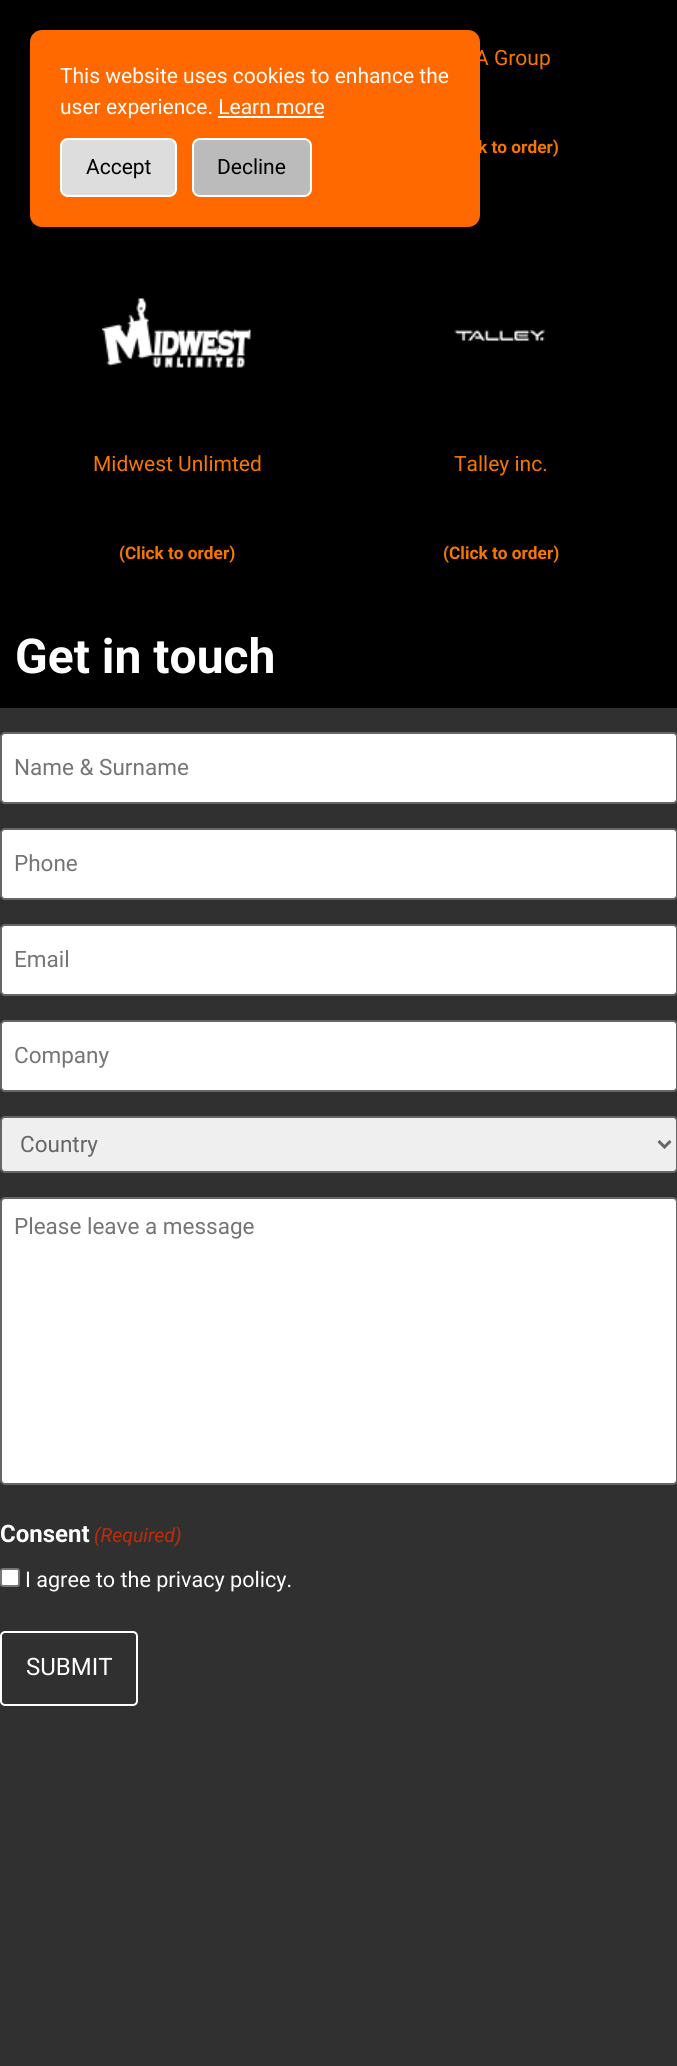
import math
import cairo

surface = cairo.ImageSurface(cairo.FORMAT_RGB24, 677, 2066)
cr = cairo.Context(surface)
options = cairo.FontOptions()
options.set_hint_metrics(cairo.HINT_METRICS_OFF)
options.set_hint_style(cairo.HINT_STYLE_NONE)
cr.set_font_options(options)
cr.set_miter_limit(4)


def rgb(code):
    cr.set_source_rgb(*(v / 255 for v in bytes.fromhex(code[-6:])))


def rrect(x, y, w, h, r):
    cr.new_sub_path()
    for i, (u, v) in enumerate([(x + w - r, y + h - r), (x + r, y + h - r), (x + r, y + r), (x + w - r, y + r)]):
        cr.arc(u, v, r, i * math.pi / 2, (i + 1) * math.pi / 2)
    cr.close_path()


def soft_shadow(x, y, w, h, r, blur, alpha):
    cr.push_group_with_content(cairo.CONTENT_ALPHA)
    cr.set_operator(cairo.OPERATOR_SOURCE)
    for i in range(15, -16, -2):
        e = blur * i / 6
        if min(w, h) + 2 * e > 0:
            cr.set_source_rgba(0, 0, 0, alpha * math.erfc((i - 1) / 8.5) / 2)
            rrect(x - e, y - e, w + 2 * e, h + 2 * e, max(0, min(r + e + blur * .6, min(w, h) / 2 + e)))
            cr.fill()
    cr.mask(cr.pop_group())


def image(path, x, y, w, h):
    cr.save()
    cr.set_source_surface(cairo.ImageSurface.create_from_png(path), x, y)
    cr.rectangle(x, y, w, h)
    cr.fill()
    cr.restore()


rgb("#303030")
cr.paint()
rgb("#000000")
cr.rectangle(0, 0, 677, 708)
cr.fill()
image("img/1.png", 102, 298, 149, 70)
image("img/2.png", 454, 329, 91, 13)
rgb("#ffffff")
rrect(1, 733, 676, 70, 4)
cr.fill_preserve()
rgb("#666666")
cr.stroke()
rgb("#ffffff")
rrect(1, 829, 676, 70, 4)
cr.fill_preserve()
rgb("#666666")
cr.stroke()
rgb("#ffffff")
rrect(1, 925, 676, 70, 4)
cr.fill_preserve()
rgb("#666666")
cr.stroke()
rgb("#ffffff")
rrect(1, 1021, 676, 70, 4)
cr.fill_preserve()
rgb("#666666")
cr.stroke()
rgb("#efefef")
rrect(1, 1117, 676, 55, 4)
cr.fill_preserve()
rgb("#666666")
cr.stroke()
cr.new_path()
cr.move_to(658.5, 1141)
cr.line_to(664.5, 1147)
cr.line_to(670.5, 1141)
cr.set_line_width(3)
cr.stroke()
rgb("#ffffff")
rrect(1, 1198, 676, 286, 4)
cr.fill_preserve()
rgb("#666666")
cr.set_line_width(2)
cr.stroke()
rgb("#ffffff")
rrect(1, 1569, 18, 17, 2)
cr.fill_preserve()
rgb("#767676")
cr.stroke()
rrect(1, 1632, 136, 73, 4)
rgb("#ffffff")
cr.stroke()
rgb("#000000")
soft_shadow(30, 36, 450, 197, 12, 7.5, 0.3)
cr.select_font_face("Roboto")
cr.set_font_size(21)
rgb("#f67700")
cr.move_to(475, 65)
cr.show_text("A Group")
cr.select_font_face("Roboto", cairo.FONT_SLANT_NORMAL, cairo.FONT_WEIGHT_BOLD)
cr.set_font_size(17.25)
cr.move_to(478, 153)
cr.show_text("k to order)")
cr.select_font_face("Roboto")
cr.set_font_size(21)
cr.move_to(93, 471)
cr.show_text("Midwest Unlimted")
cr.select_font_face("Roboto", cairo.FONT_SLANT_NORMAL, cairo.FONT_WEIGHT_BOLD)
cr.set_font_size(17.25)
cr.move_to(119, 559)
cr.show_text("(Click to order)")
cr.select_font_face("Roboto")
cr.set_font_size(21)
cr.move_to(454, 471)
cr.show_text("Talley inc.")
cr.select_font_face("Roboto", cairo.FONT_SLANT_NORMAL, cairo.FONT_WEIGHT_BOLD)
cr.set_font_size(17.25)
cr.move_to(443, 559)
cr.show_text("(Click to order)")
cr.set_font_size(48)
rgb("#ffffff")
cr.move_to(15, 673)
cr.show_text("Get in touch")
cr.select_font_face("Roboto")
cr.set_font_size(22.5)
rgb("#757575")
for x, y, s in [
    (14, 775, "Name & Surname"),
    (14, 871, "Phone"),
    (14, 967, "Email"),
    (14, 1063, "Company"),
]:
    cr.move_to(x, y)
    cr.show_text(s)
rgb("#666666")
cr.move_to(20, 1152)
cr.show_text("Country")
rgb("#757575")
cr.move_to(14, 1234)
cr.show_text("Please leave a message")
cr.select_font_face("Roboto", cairo.FONT_SLANT_NORMAL, cairo.FONT_WEIGHT_BOLD)
cr.set_font_size(24)
rgb("#ffffff")
cr.move_to(0, 1542)
cr.show_text("Consent")
cr.select_font_face("Roboto", cairo.FONT_SLANT_ITALIC)
cr.set_font_size(19.5)
rgb("#c02b0a")
cr.move_to(94, 1542)
cr.show_text("(Required)")
cr.select_font_face("Roboto")
cr.set_font_size(21.6)
rgb("#ffffff")
cr.move_to(25, 1587)
cr.show_text("I agree to the privacy policy.")
cr.set_font_size(24)
cr.move_to(26, 1675)
cr.show_text("SUBMIT")
rgb("#ff6900")
rrect(30, 30, 450, 197, 12)
cr.fill()
cr.set_font_size(21)
rgb("#ffffff")
cr.move_to(60, 83)
cr.show_text("This website uses cookies to enhance the")
cr.move_to(60, 114)
cr.show_text("user experience. Learn more")
cr.rectangle(218, 116, 106, 2)
cr.fill()
rgb("#dddddd")
rrect(61, 139, 115, 57, 7)
cr.fill_preserve()
rgb("#ffffff")
cr.stroke()
rgb("#000000")
cr.move_to(86, 174)
cr.show_text("Accept")
rgb("#bbbbbb")
rrect(193, 139, 118, 57, 7)
cr.fill_preserve()
rgb("#ffffff")
cr.stroke()
rgb("#000000")
cr.move_to(217, 174)
cr.show_text("Decline")
surface.write_to_png("page.png")
